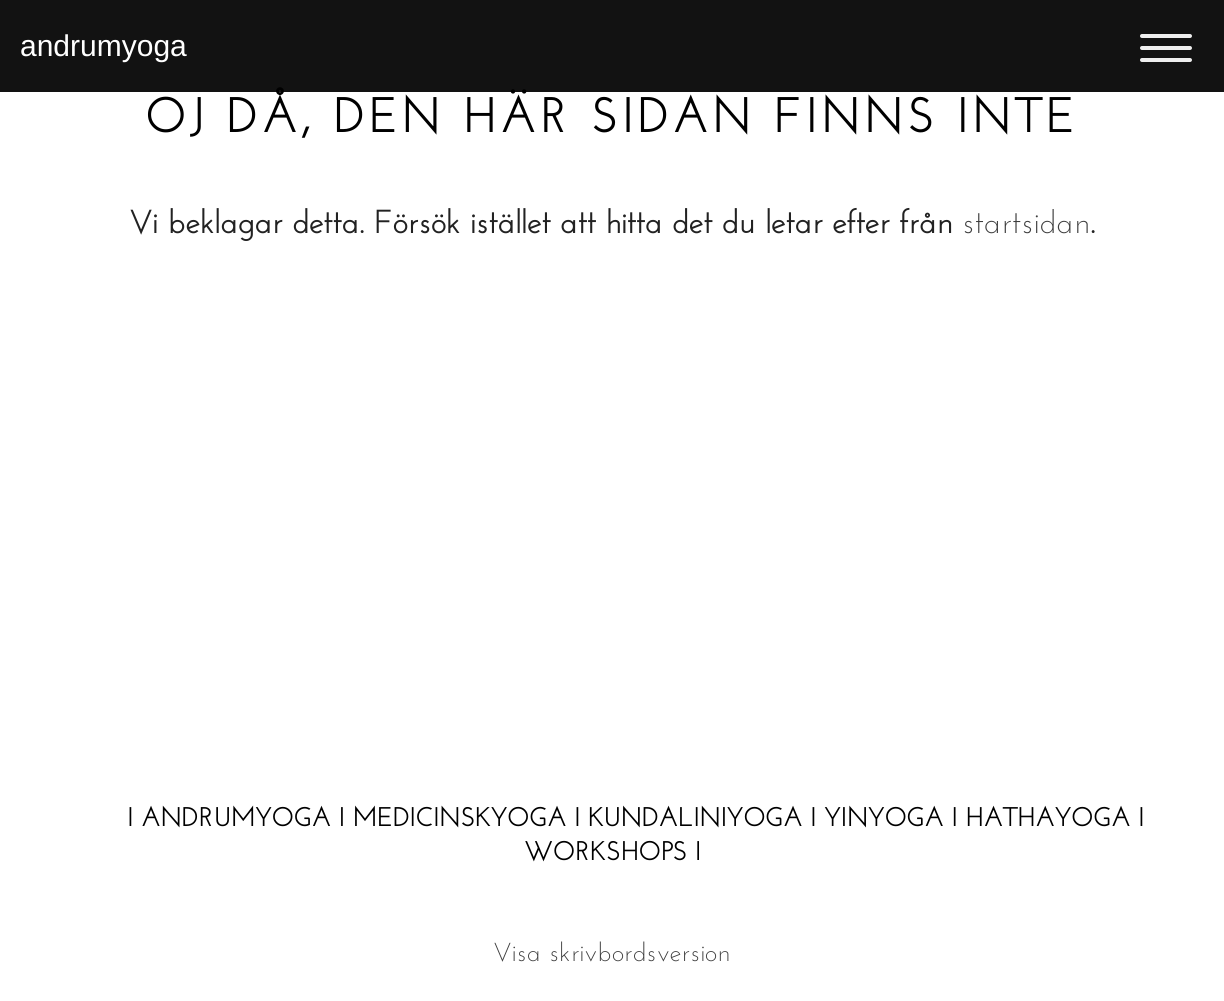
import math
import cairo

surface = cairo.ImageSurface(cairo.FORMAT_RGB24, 1224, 1001)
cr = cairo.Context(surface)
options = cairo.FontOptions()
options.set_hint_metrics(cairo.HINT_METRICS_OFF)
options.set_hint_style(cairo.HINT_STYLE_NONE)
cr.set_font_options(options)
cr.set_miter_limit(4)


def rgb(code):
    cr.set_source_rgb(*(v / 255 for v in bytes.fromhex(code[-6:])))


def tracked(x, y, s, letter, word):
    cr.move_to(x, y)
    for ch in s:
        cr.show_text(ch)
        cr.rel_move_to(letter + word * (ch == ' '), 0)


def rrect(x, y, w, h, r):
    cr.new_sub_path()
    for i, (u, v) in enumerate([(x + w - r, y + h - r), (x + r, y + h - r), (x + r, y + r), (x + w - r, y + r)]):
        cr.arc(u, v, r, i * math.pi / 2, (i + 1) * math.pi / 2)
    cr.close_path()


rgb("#ffffff")
cr.paint()
rgb("#121212")
cr.rectangle(0, 0, 1224, 92)
cr.fill()
rgb("#eeeeee")
rrect(1140, 34, 52, 4, 2)
cr.fill()
rrect(1140, 46, 52, 4, 2)
cr.fill()
rrect(1140, 58, 52, 4, 2)
cr.fill()
cr.select_font_face("Liberation Sans")
cr.set_font_size(30)
rgb("#ffffff")
cr.move_to(20, 56)
cr.show_text("andrumyoga")
cr.select_font_face("Josefin Sans", cairo.FONT_SLANT_NORMAL, cairo.FONT_WEIGHT_BOLD)
cr.set_font_size(48)
rgb("#000000")
tracked(145, 132, "OJ DÅ, DEN HÄR SIDAN FINNS INTE", 4, 0)
cr.set_font_size(32)
rgb("#222222")
cr.move_to(129, 233)
cr.show_text("Vi beklagar detta. Försök istället att hitta det du letar efter från")
cr.select_font_face("Josefin Sans Light")
rgb("#3d3d3d")
cr.move_to(962, 233)
cr.show_text("startsidan")
cr.select_font_face("Josefin Sans", cairo.FONT_SLANT_NORMAL, cairo.FONT_WEIGHT_BOLD)
rgb("#222222")
cr.move_to(1090, 233)
cr.show_text(".")
cr.set_font_size(26)
rgb("#000000")
cr.move_to(127, 826)
cr.show_text("I ANDRUMYOGA I MEDICINSKYOGA I KUNDALINIYOGA I YINYOGA I HATHAYOGA I")
cr.move_to(524, 860)
cr.show_text("WORKSHOPS I")
cr.select_font_face("Josefin Sans Light")
rgb("#3d3d3d")
cr.move_to(493, 961)
cr.show_text("Visa skrivbordsversion")
surface.write_to_png("page.png")
